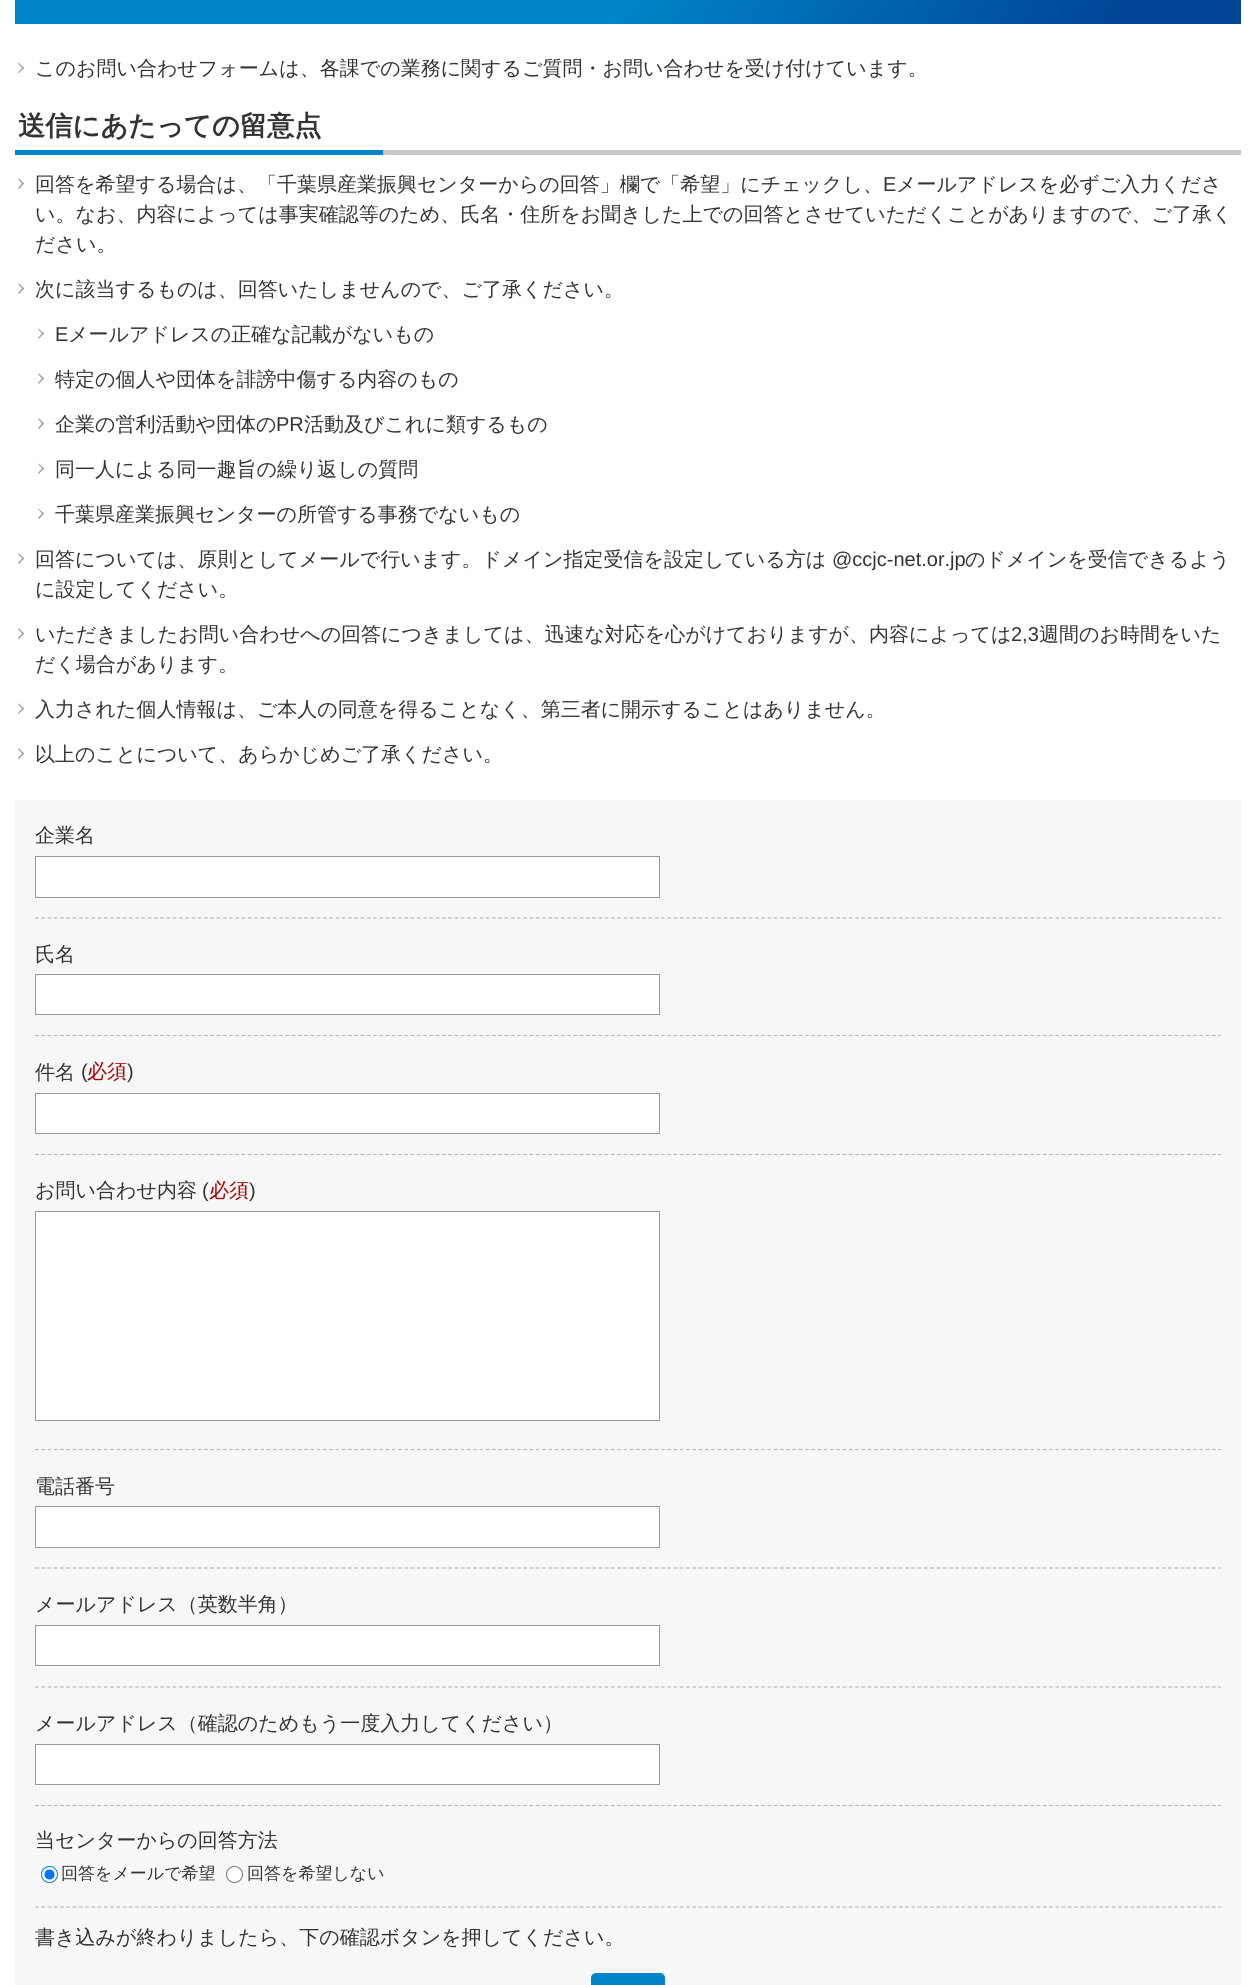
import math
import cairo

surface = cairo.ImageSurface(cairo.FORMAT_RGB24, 1256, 1985)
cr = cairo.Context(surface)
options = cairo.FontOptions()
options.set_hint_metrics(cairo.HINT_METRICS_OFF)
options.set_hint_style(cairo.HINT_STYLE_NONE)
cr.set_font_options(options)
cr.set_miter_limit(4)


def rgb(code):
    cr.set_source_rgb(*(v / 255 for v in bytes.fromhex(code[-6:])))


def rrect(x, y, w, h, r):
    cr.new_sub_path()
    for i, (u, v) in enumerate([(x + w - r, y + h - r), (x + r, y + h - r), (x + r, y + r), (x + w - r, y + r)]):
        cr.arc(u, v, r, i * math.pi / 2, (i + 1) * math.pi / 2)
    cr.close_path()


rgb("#ffffff")
cr.paint()
gradient = cairo.LinearGradient(149, -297, 1107, 256)
gradient.add_color_stop_rgba(0.5, 0, 0.522, 0.796, 1)
gradient.add_color_stop_rgba(0.9, 0, 0.271, 0.588, 1)
cr.set_source(gradient)
cr.rectangle(15, 0, 1226, 24)
cr.fill()
rgb("#999999")
cr.new_path()
cr.move_to(18, 63.5)
cr.line_to(18.5, 62.5)
cr.line_to(24, 68)
cr.line_to(23, 68.5)
cr.close_path()
cr.fill()
cr.new_path()
cr.move_to(18, 72.5)
cr.line_to(23, 67)
cr.line_to(24, 68)
cr.line_to(19, 73)
cr.close_path()
cr.fill()
rgb("#c7c7c7")
cr.rectangle(383, 150, 858, 5)
cr.fill()
rgb("#0085cb")
cr.rectangle(15, 150, 368, 5)
cr.fill()
rgb("#999999")
cr.new_path()
cr.move_to(18, 179)
cr.line_to(19, 178.5)
cr.line_to(24, 183.5)
cr.line_to(23, 184.5)
cr.close_path()
cr.fill()
cr.new_path()
cr.move_to(18, 188)
cr.line_to(23, 182.5)
cr.line_to(24, 183.5)
cr.line_to(19, 189)
cr.close_path()
cr.fill()
cr.new_path()
cr.move_to(18, 284)
cr.line_to(19, 283.5)
cr.line_to(24, 288.5)
cr.line_to(23, 289.5)
cr.close_path()
cr.fill()
cr.new_path()
cr.move_to(18, 293)
cr.line_to(23, 287.5)
cr.line_to(24, 288.5)
cr.line_to(19, 294)
cr.close_path()
cr.fill()
cr.new_path()
cr.move_to(38, 329)
cr.line_to(38.5, 328.5)
cr.line_to(44, 333.5)
cr.line_to(43, 334.5)
cr.close_path()
cr.fill()
cr.new_path()
cr.move_to(38, 338)
cr.line_to(43, 332.5)
cr.line_to(44, 333.5)
cr.line_to(38.5, 339)
cr.close_path()
cr.fill()
cr.new_path()
cr.move_to(38, 374)
cr.line_to(39, 373.5)
cr.line_to(44, 378.5)
cr.line_to(43, 379.5)
cr.close_path()
cr.fill()
cr.new_path()
cr.move_to(38, 383)
cr.line_to(43, 377.5)
cr.line_to(44, 378.5)
cr.line_to(38.5, 384)
cr.close_path()
cr.fill()
cr.new_path()
cr.move_to(38, 419)
cr.line_to(39, 418.5)
cr.line_to(44, 423.5)
cr.line_to(43, 424.5)
cr.close_path()
cr.fill()
cr.new_path()
cr.move_to(38, 428)
cr.line_to(43, 422.5)
cr.line_to(44, 423.5)
cr.line_to(39, 429)
cr.close_path()
cr.fill()
cr.new_path()
cr.move_to(38, 464)
cr.line_to(38.5, 463.5)
cr.line_to(44, 468.5)
cr.line_to(43, 469.5)
cr.close_path()
cr.fill()
cr.new_path()
cr.move_to(38, 473)
cr.line_to(43, 467.5)
cr.line_to(44, 468.5)
cr.line_to(38.5, 474)
cr.close_path()
cr.fill()
cr.new_path()
cr.move_to(38, 509)
cr.line_to(38.5, 508.5)
cr.line_to(44, 513.5)
cr.line_to(43, 514.5)
cr.close_path()
cr.fill()
cr.new_path()
cr.move_to(38, 518)
cr.line_to(43, 512.5)
cr.line_to(44, 513.5)
cr.line_to(39, 519)
cr.close_path()
cr.fill()
cr.new_path()
cr.move_to(18, 554)
cr.line_to(19, 553.5)
cr.line_to(24, 558.5)
cr.line_to(23, 559.5)
cr.close_path()
cr.fill()
cr.new_path()
cr.move_to(18, 563)
cr.line_to(23, 557.5)
cr.line_to(24, 558.5)
cr.line_to(19, 564)
cr.close_path()
cr.fill()
cr.new_path()
cr.move_to(18, 629)
cr.line_to(19, 628.5)
cr.line_to(24, 633.5)
cr.line_to(23, 634.5)
cr.close_path()
cr.fill()
cr.new_path()
cr.move_to(18, 638)
cr.line_to(23, 632.5)
cr.line_to(24, 633.5)
cr.line_to(19, 639)
cr.close_path()
cr.fill()
cr.new_path()
cr.move_to(18, 704)
cr.line_to(19, 703.5)
cr.line_to(24, 708.5)
cr.line_to(23, 709.5)
cr.close_path()
cr.fill()
cr.new_path()
cr.move_to(18, 713)
cr.line_to(23, 707.5)
cr.line_to(24, 708.5)
cr.line_to(18.5, 714)
cr.close_path()
cr.fill()
cr.new_path()
cr.move_to(18, 749)
cr.line_to(19, 748.5)
cr.line_to(24, 753.5)
cr.line_to(23, 754.5)
cr.close_path()
cr.fill()
cr.new_path()
cr.move_to(18, 758)
cr.line_to(23, 752.5)
cr.line_to(24, 753.5)
cr.line_to(19, 759)
cr.close_path()
cr.fill()
rgb("#f7f7f7")
cr.rectangle(15, 800, 1226, 1185)
cr.fill()
cr.new_path()
cr.move_to(35, 918)
cr.line_to(1221, 918)
rgb("#bbbbbb")
cr.set_line_width(1.2)
cr.set_dash([3.75, 2.51])
cr.stroke()
rgb("#ffffff")
cr.rectangle(35.5, 856.5, 624, 41)
cr.fill_preserve()
rgb("#999999")
cr.set_line_width(1)
cr.set_dash([])
cr.stroke()
cr.new_path()
cr.move_to(35, 1035.5)
cr.line_to(1221, 1035.5)
rgb("#bbbbbb")
cr.set_line_width(1.2)
cr.set_dash([3.75, 2.51])
cr.stroke()
rgb("#ffffff")
cr.rectangle(35.5, 974.5, 624, 40)
cr.fill_preserve()
rgb("#999999")
cr.set_line_width(1)
cr.set_dash([])
cr.stroke()
cr.new_path()
cr.move_to(35, 1154.5)
cr.line_to(1221, 1154.5)
rgb("#bbbbbb")
cr.set_line_width(1.2)
cr.set_dash([3.75, 2.51])
cr.stroke()
rgb("#ffffff")
cr.rectangle(35.5, 1093.5, 624, 40)
cr.fill_preserve()
rgb("#999999")
cr.set_line_width(1)
cr.set_dash([])
cr.stroke()
cr.new_path()
cr.move_to(35, 1449.5)
cr.line_to(1221, 1449.5)
rgb("#bbbbbb")
cr.set_line_width(1.2)
cr.set_dash([3.75, 2.51])
cr.stroke()
rgb("#ffffff")
cr.rectangle(35.5, 1211.5, 624, 209)
cr.fill_preserve()
rgb("#999999")
cr.set_line_width(1)
cr.set_dash([])
cr.stroke()
cr.new_path()
cr.move_to(35, 1568)
cr.line_to(1221, 1568)
rgb("#bbbbbb")
cr.set_line_width(1.2)
cr.set_dash([3.75, 2.51])
cr.stroke()
rgb("#ffffff")
cr.rectangle(35.5, 1506.5, 624, 41)
cr.fill_preserve()
rgb("#999999")
cr.set_line_width(1)
cr.set_dash([])
cr.stroke()
cr.new_path()
cr.move_to(35, 1687)
cr.line_to(1221, 1687)
rgb("#bbbbbb")
cr.set_line_width(1.2)
cr.set_dash([3.75, 2.51])
cr.stroke()
rgb("#ffffff")
cr.rectangle(35.5, 1625.5, 624, 40)
cr.fill_preserve()
rgb("#999999")
cr.set_line_width(1)
cr.set_dash([])
cr.stroke()
cr.new_path()
cr.move_to(35, 1805.5)
cr.line_to(1221, 1805.5)
rgb("#bbbbbb")
cr.set_line_width(1.2)
cr.set_dash([3.75, 2.51])
cr.stroke()
rgb("#ffffff")
cr.rectangle(35.5, 1744.5, 624, 40)
cr.fill_preserve()
rgb("#999999")
cr.set_line_width(1)
cr.set_dash([])
cr.stroke()
cr.new_path()
cr.move_to(35, 1907)
cr.line_to(1221, 1907)
rgb("#bbbbbb")
cr.set_line_width(1.2)
cr.set_dash([3.75, 2.51])
cr.stroke()
rgb("#ffffff")
cr.arc(49.5, 1874.5, 8, 0, 2 * math.pi)
cr.fill_preserve()
rgb("#0075ff")
cr.set_line_width(1)
cr.set_dash([])
cr.stroke()
cr.arc(49.5, 1874.5, 5, 0, 2 * math.pi)
cr.fill()
rgb("#ffffff")
cr.arc(234.5, 1874.5, 8, 0, 2 * math.pi)
cr.fill_preserve()
rgb("#767676")
cr.stroke()
rgb("#0085cb")
rrect(591, 1973, 74, 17, 5)
cr.fill()
cr.select_font_face("WenQuanYi Zen Hei Medium")
cr.set_font_size(20)
rgb("#333333")
cr.move_to(35, 75)
cr.show_text("このお問い合わせフォームは、各課での業務に関するご質問・お問い合わせを受け付けています。")
cr.select_font_face("WenQuanYi Zen Hei", cairo.FONT_SLANT_NORMAL, cairo.FONT_WEIGHT_BOLD)
cr.set_font_size(27.25)
cr.move_to(18, 135)
cr.show_text("送信にあたっての留意点")
cr.select_font_face("WenQuanYi Zen Hei Medium")
cr.set_font_size(20)
cr.move_to(35, 191)
cr.show_text("回答を希望する場合は、「千葉県産業振興センターからの回答」欄で「希望」にチェックし、")
cr.select_font_face("Liberation Sans")
cr.move_to(883, 191)
cr.show_text("E")
cr.select_font_face("WenQuanYi Zen Hei Medium")
for x, y, s in [
    (896, 191, "メールアドレスを必ずご入力くださ"),
    (35, 221, "い。なお、内容によっては事実確認等のため、氏名・住所をお聞きした上での回答とさせていただくことがありますので、ご了承く"),
    (35, 251, "ださい。"),
    (35, 296, "次に該当するものは、回答いたしませんので、ご了承ください。"),
]:
    cr.move_to(x, y)
    cr.show_text(s)
cr.select_font_face("Liberation Sans")
cr.move_to(55, 341)
cr.show_text("E")
cr.select_font_face("WenQuanYi Zen Hei Medium")
for x, y, s in [
    (68, 341, "メールアドレスの正確な記載がないもの"),
    (55, 386, "特定の個人や団体を誹謗中傷する内容のもの"),
    (55, 431, "企業の営利活動や団体の"),
]:
    cr.move_to(x, y)
    cr.show_text(s)
cr.select_font_face("Liberation Sans")
cr.move_to(276, 431)
cr.show_text("PR")
cr.select_font_face("WenQuanYi Zen Hei Medium")
for x, y, s in [
    (304, 431, "活動及びこれに類するもの"),
    (55, 476, "同一人による同一趣旨の繰り返しの質問"),
    (55, 521, "千葉県産業振興センターの所管する事務でないもの"),
    (35, 566, "回答については、原則としてメールで行います。ドメイン指定受信を設定している方は"),
]:
    cr.move_to(x, y)
    cr.show_text(s)
cr.select_font_face("Liberation Sans")
cr.move_to(832, 566)
cr.show_text("@ccjc-net.or.jp")
cr.select_font_face("WenQuanYi Zen Hei Medium")
for x, y, s in [
    (965, 566, "のドメインを受信できるよう"),
    (35, 596, "に設定してください。"),
    (35, 641, "いただきましたお問い合わせへの回答につきましては、迅速な対応を心がけておりますが、内容によっては"),
]:
    cr.move_to(x, y)
    cr.show_text(s)
cr.select_font_face("Liberation Sans")
cr.move_to(1011, 641)
cr.show_text("2,3")
cr.select_font_face("WenQuanYi Zen Hei Medium")
for x, y, s in [
    (1039, 641, "週間のお時間をいた"),
    (35, 671, "だく場合があります。"),
    (35, 716, "入力された個人情報は、ご本人の同意を得ることなく、第三者に開示することはありません。"),
    (35, 761, "以上のことについて、あらかじめご了承ください。"),
    (35, 842, "企業名"),
    (35, 961, "氏名"),
    (35, 1079, "件名"),
]:
    cr.move_to(x, y)
    cr.show_text(s)
cr.select_font_face("Liberation Sans")
cr.move_to(81, 1078)
cr.show_text("(")
cr.select_font_face("WenQuanYi Zen Hei Medium")
rgb("#a90000")
cr.move_to(87, 1078)
cr.show_text("必須")
cr.select_font_face("Liberation Sans")
rgb("#333333")
cr.move_to(127, 1078)
cr.show_text(")")
cr.select_font_face("WenQuanYi Zen Hei Medium")
cr.move_to(35, 1197)
cr.show_text("お問い合わせ内容")
cr.select_font_face("Liberation Sans")
cr.move_to(202, 1197)
cr.show_text("(")
cr.select_font_face("WenQuanYi Zen Hei Medium")
rgb("#a90000")
cr.move_to(209, 1197)
cr.show_text("必須")
cr.select_font_face("Liberation Sans")
rgb("#333333")
cr.move_to(249, 1197)
cr.show_text(")")
cr.select_font_face("WenQuanYi Zen Hei Medium")
for x, y, s in [
    (35, 1493, "電話番号"),
    (35, 1611, "メールアドレス（英数半角）"),
    (35, 1730, "メールアドレス（確認のためもう一度入力してください）"),
    (35, 1847, "当センターからの回答方法"),
]:
    cr.move_to(x, y)
    cr.show_text(s)
cr.set_font_size(17)
cr.move_to(61, 1879)
cr.show_text("回答をメールで希望")
cr.move_to(247, 1879)
cr.show_text("回答を希望しない")
cr.set_font_size(20)
cr.move_to(35, 1944)
cr.show_text("書き込みが終わりましたら、下の確認ボタンを押してください。")
surface.write_to_png("page.png")
